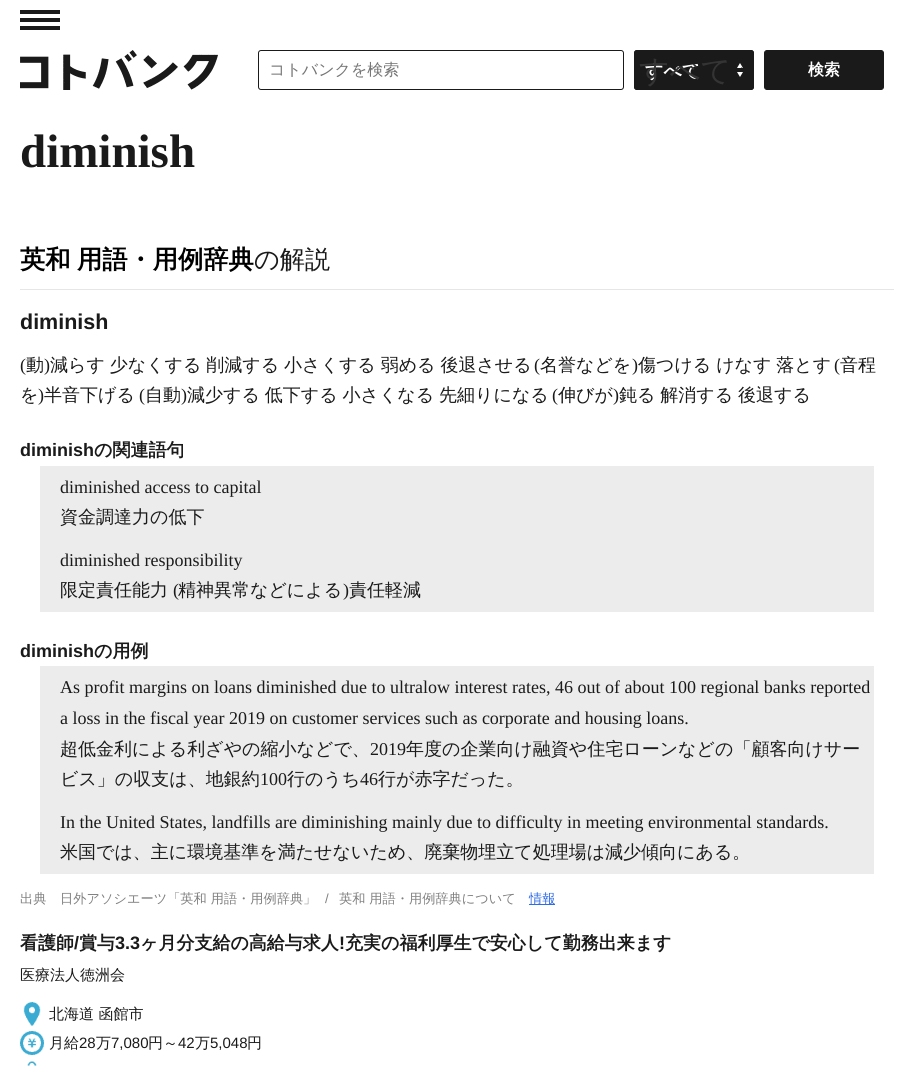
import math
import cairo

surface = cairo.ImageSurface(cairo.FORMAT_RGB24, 914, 1066)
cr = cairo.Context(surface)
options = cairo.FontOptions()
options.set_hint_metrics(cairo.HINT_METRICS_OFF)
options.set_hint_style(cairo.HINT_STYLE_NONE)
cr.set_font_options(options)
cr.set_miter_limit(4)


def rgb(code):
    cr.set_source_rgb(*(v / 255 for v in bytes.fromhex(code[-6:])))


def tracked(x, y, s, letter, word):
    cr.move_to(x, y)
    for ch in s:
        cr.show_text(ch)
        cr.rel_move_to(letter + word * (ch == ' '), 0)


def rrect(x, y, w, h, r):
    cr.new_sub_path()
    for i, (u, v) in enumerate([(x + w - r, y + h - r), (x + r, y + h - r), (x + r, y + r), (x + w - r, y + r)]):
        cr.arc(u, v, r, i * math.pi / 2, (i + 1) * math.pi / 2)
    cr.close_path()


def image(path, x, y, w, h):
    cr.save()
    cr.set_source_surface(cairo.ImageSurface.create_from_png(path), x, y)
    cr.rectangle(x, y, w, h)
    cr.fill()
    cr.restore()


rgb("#ffffff")
cr.paint()
image("img/1.png", 20, 10, 40, 20)
image("img/2.png", 20, 50, 198, 40)
rrect(258.5, 50.5, 365, 39, 2.5)
rgb("#1a1a1a")
cr.set_line_width(1)
cr.stroke()
rrect(634, 50, 120, 40, 3)
cr.fill()
image("img/3.png", 737, 63, 6, 14)
rrect(634.5, 50.5, 119, 39, 2.5)
cr.stroke()
cr.new_path()
cr.move_to(741, 68)
cr.line_to(745, 72)
cr.line_to(749, 68)
cr.set_line_width(2)
cr.stroke()
rrect(764.5, 50.5, 119, 39, 2.5)
cr.fill_preserve()
cr.set_line_width(1)
cr.stroke()
for x, y, w, h, color in [
    (20, 289, 874, 1, "#e6e6e6"),
    (40, 466, 834, 146, "#ececec"),
    (40, 666, 834, 208, "#ececec"),
    (529, 904, 26, 1, "#2f6be6"),
]:
    rgb(color)
    cr.rectangle(x, y, w, h)
    cr.fill()
image("img/4.png", 23, 1002, 18, 24)
image("img/5.png", 20, 1031, 24, 24)
image("img/6.png", 27, 1061, 10, 5)
cr.select_font_face("WenQuanYi Zen Hei Medium")
cr.set_font_size(16)
rgb("#757575")
cr.move_to(269, 75)
cr.show_text("コトバンクを検索")
cr.select_font_face("WenQuanYi Zen Hei", cairo.FONT_SLANT_NORMAL, cairo.FONT_WEIGHT_BOLD)
cr.set_font_size(18)
rgb("#ffffff")
cr.move_to(645, 77)
cr.show_text("すべて")
cr.select_font_face("WenQuanYi Zen Hei Medium")
cr.set_font_size(30)
rgb("#343434")
cr.move_to(639, 81)
cr.show_text("すべて")
cr.select_font_face("WenQuanYi Zen Hei", cairo.FONT_SLANT_NORMAL, cairo.FONT_WEIGHT_BOLD)
cr.set_font_size(16)
rgb("#ffffff")
cr.move_to(808, 75)
cr.show_text("検索")
cr.select_font_face("Liberation Serif", cairo.FONT_SLANT_NORMAL, cairo.FONT_WEIGHT_BOLD)
cr.set_font_size(47)
rgb("#1a1a1a")
cr.move_to(20, 167)
cr.show_text("diminish")
cr.select_font_face("WenQuanYi Zen Hei", cairo.FONT_SLANT_NORMAL, cairo.FONT_WEIGHT_BOLD)
cr.set_font_size(25.25)
rgb("#000000")
tracked(20, 268, "英和 用語・用例辞典", 0, -1)
cr.select_font_face("WenQuanYi Zen Hei Medium")
rgb("#1a1a1a")
cr.move_to(254, 268)
cr.show_text("の解説")
cr.select_font_face("Liberation Sans", cairo.FONT_SLANT_NORMAL, cairo.FONT_WEIGHT_BOLD)
cr.set_font_size(21.5)
cr.move_to(20, 329)
cr.show_text("diminish")
cr.select_font_face("Liberation Serif")
cr.set_font_size(18)
cr.move_to(20, 371)
cr.show_text("(")
cr.select_font_face("WenQuanYi Zen Hei Medium")
cr.move_to(26, 371)
cr.show_text("動")
cr.select_font_face("Liberation Serif")
cr.move_to(44, 371)
cr.show_text(")")
cr.select_font_face("WenQuanYi Zen Hei Medium")
tracked(50, 371, "減らす 少なくする 削減する 小さくする 弱める 後退させる", 0, -0.5)
cr.select_font_face("Liberation Serif")
cr.move_to(534, 371)
cr.show_text("(")
cr.select_font_face("WenQuanYi Zen Hei Medium")
cr.move_to(540, 371)
cr.show_text("名誉などを")
cr.select_font_face("Liberation Serif")
cr.move_to(632, 371)
cr.show_text(")")
cr.select_font_face("WenQuanYi Zen Hei Medium")
tracked(638, 371, "傷つける けなす 落とす", 0, -0.5)
cr.select_font_face("Liberation Serif")
cr.move_to(834, 371)
cr.show_text("(")
cr.select_font_face("WenQuanYi Zen Hei Medium")
cr.move_to(840, 371)
cr.show_text("音程")
cr.move_to(20, 401)
cr.show_text("を")
cr.select_font_face("Liberation Serif")
cr.move_to(38, 401)
cr.show_text(")")
cr.select_font_face("WenQuanYi Zen Hei Medium")
cr.move_to(44, 401)
cr.show_text("半音下げる")
cr.select_font_face("Liberation Serif")
cr.move_to(139, 401)
cr.show_text("(")
cr.select_font_face("WenQuanYi Zen Hei Medium")
cr.move_to(145, 401)
cr.show_text("自動")
cr.select_font_face("Liberation Serif")
cr.move_to(181, 401)
cr.show_text(")")
cr.select_font_face("WenQuanYi Zen Hei Medium")
tracked(187, 401, "減少する 低下する 小さくなる 先細りになる", 0, -0.5)
cr.select_font_face("Liberation Serif")
cr.move_to(552, 401)
cr.show_text("(")
cr.select_font_face("WenQuanYi Zen Hei Medium")
cr.move_to(558, 401)
cr.show_text("伸びが")
cr.select_font_face("Liberation Serif")
cr.move_to(613, 401)
cr.show_text(")")
cr.select_font_face("WenQuanYi Zen Hei Medium")
tracked(619, 401, "鈍る 解消する 後退する", 0, -0.5)
cr.select_font_face("Liberation Sans", cairo.FONT_SLANT_NORMAL, cairo.FONT_WEIGHT_BOLD)
cr.move_to(20, 456)
cr.show_text("diminish")
cr.select_font_face("WenQuanYi Zen Hei", cairo.FONT_SLANT_NORMAL, cairo.FONT_WEIGHT_BOLD)
cr.move_to(94, 456)
cr.show_text("の関連語句")
cr.select_font_face("Liberation Serif")
cr.move_to(60, 493)
cr.show_text("diminished access to capital")
cr.select_font_face("WenQuanYi Zen Hei Medium")
cr.move_to(60, 523)
cr.show_text("資金調達力の低下")
cr.select_font_face("Liberation Serif")
cr.move_to(60, 566)
cr.show_text("diminished responsibility")
cr.select_font_face("WenQuanYi Zen Hei Medium")
cr.move_to(60, 596)
cr.show_text("限定責任能力")
cr.select_font_face("Liberation Serif")
cr.move_to(173, 596)
cr.show_text("(")
cr.select_font_face("WenQuanYi Zen Hei Medium")
cr.move_to(178, 596)
cr.show_text("精神異常などによる")
cr.select_font_face("Liberation Serif")
cr.move_to(343, 596)
cr.show_text(")")
cr.select_font_face("WenQuanYi Zen Hei Medium")
cr.move_to(349, 596)
cr.show_text("責任軽減")
cr.select_font_face("Liberation Sans", cairo.FONT_SLANT_NORMAL, cairo.FONT_WEIGHT_BOLD)
cr.move_to(20, 657)
cr.show_text("diminish")
cr.select_font_face("WenQuanYi Zen Hei", cairo.FONT_SLANT_NORMAL, cairo.FONT_WEIGHT_BOLD)
cr.move_to(94, 657)
cr.show_text("の用例")
cr.select_font_face("Liberation Serif")
cr.move_to(60, 693)
cr.show_text("As profit margins on loans diminished due to ultralow interest rates, 46 out of about 100 regional banks reported")
cr.move_to(60, 724)
cr.show_text("a loss in the fiscal year 2019 on customer services such as corporate and housing loans.")
cr.select_font_face("WenQuanYi Zen Hei Medium")
cr.move_to(60, 755)
cr.show_text("超低金利による利ざやの縮小などで、")
cr.select_font_face("Liberation Serif")
cr.move_to(370, 755)
cr.show_text("2019")
cr.select_font_face("WenQuanYi Zen Hei Medium")
cr.move_to(406, 755)
cr.show_text("年度の企業向け融資や住宅ローンなどの「顧客向けサー")
cr.move_to(60, 785)
cr.show_text("ビス」の収支は、地銀約")
cr.select_font_face("Liberation Serif")
cr.move_to(260, 785)
cr.show_text("100")
cr.select_font_face("WenQuanYi Zen Hei Medium")
cr.move_to(287, 785)
cr.show_text("行のうち")
cr.select_font_face("Liberation Serif")
cr.move_to(360, 785)
cr.show_text("46")
cr.select_font_face("WenQuanYi Zen Hei Medium")
cr.move_to(378, 785)
cr.show_text("行が赤字だった。")
cr.select_font_face("Liberation Serif")
cr.move_to(60, 828)
cr.show_text("In the United States, landfills are diminishing mainly due to difficulty in meeting environmental standards.")
cr.select_font_face("WenQuanYi Zen Hei Medium")
cr.move_to(60, 858)
cr.show_text("米国では、主に環境基準を満たせないため、廃棄物埋立て処理場は減少傾向にある。")
cr.set_font_size(13.2)
rgb("#808080")
cr.move_to(20, 903)
cr.show_text("出典")
cr.move_to(60, 903)
cr.show_text("日外アソシエーツ「英和 用語・用例辞典」")
cr.select_font_face("Liberation Sans")
cr.move_to(325, 903)
cr.show_text("/")
cr.select_font_face("WenQuanYi Zen Hei Medium")
cr.move_to(339, 903)
cr.show_text("英和 用語・用例辞典について")
rgb("#2f6be6")
cr.move_to(529, 903)
cr.show_text("情報")
cr.select_font_face("WenQuanYi Zen Hei", cairo.FONT_SLANT_NORMAL, cairo.FONT_WEIGHT_BOLD)
cr.set_font_size(18)
rgb("#1a1a1a")
cr.move_to(20, 949)
cr.show_text("看護師")
cr.select_font_face("Liberation Sans", cairo.FONT_SLANT_NORMAL, cairo.FONT_WEIGHT_BOLD)
cr.move_to(74, 949)
cr.show_text("/")
cr.select_font_face("WenQuanYi Zen Hei", cairo.FONT_SLANT_NORMAL, cairo.FONT_WEIGHT_BOLD)
cr.move_to(79, 949)
cr.show_text("賞与")
cr.select_font_face("Liberation Sans", cairo.FONT_SLANT_NORMAL, cairo.FONT_WEIGHT_BOLD)
cr.move_to(115, 949)
cr.show_text("3.3")
cr.select_font_face("WenQuanYi Zen Hei", cairo.FONT_SLANT_NORMAL, cairo.FONT_WEIGHT_BOLD)
cr.move_to(140, 949)
cr.show_text("ヶ月分支給の高給与求人")
cr.select_font_face("Liberation Sans", cairo.FONT_SLANT_NORMAL, cairo.FONT_WEIGHT_BOLD)
cr.move_to(339, 949)
cr.show_text("!")
cr.select_font_face("WenQuanYi Zen Hei", cairo.FONT_SLANT_NORMAL, cairo.FONT_WEIGHT_BOLD)
cr.move_to(345, 949)
cr.show_text("充実の福利厚生で安心して勤務出来ます")
cr.select_font_face("WenQuanYi Zen Hei Medium")
cr.set_font_size(15)
for x, y, s in [
    (20, 980, "医療法人徳洲会"),
    (49, 1019, "北海道 函館市"),
    (49, 1048, "月給"),
]:
    cr.move_to(x, y)
    cr.show_text(s)
cr.select_font_face("Liberation Sans")
cr.move_to(79, 1048)
cr.show_text("28")
cr.select_font_face("WenQuanYi Zen Hei Medium")
cr.move_to(96, 1048)
cr.show_text("万")
cr.select_font_face("Liberation Sans")
cr.move_to(111, 1048)
cr.show_text("7,080")
cr.select_font_face("WenQuanYi Zen Hei Medium")
cr.move_to(148, 1048)
cr.show_text("円～")
cr.select_font_face("Liberation Sans")
cr.move_to(178, 1048)
cr.show_text("42")
cr.select_font_face("WenQuanYi Zen Hei Medium")
cr.move_to(195, 1048)
cr.show_text("万")
cr.select_font_face("Liberation Sans")
cr.move_to(210, 1048)
cr.show_text("5,048")
cr.select_font_face("WenQuanYi Zen Hei Medium")
cr.move_to(247, 1048)
cr.show_text("円")
surface.write_to_png("page.png")
